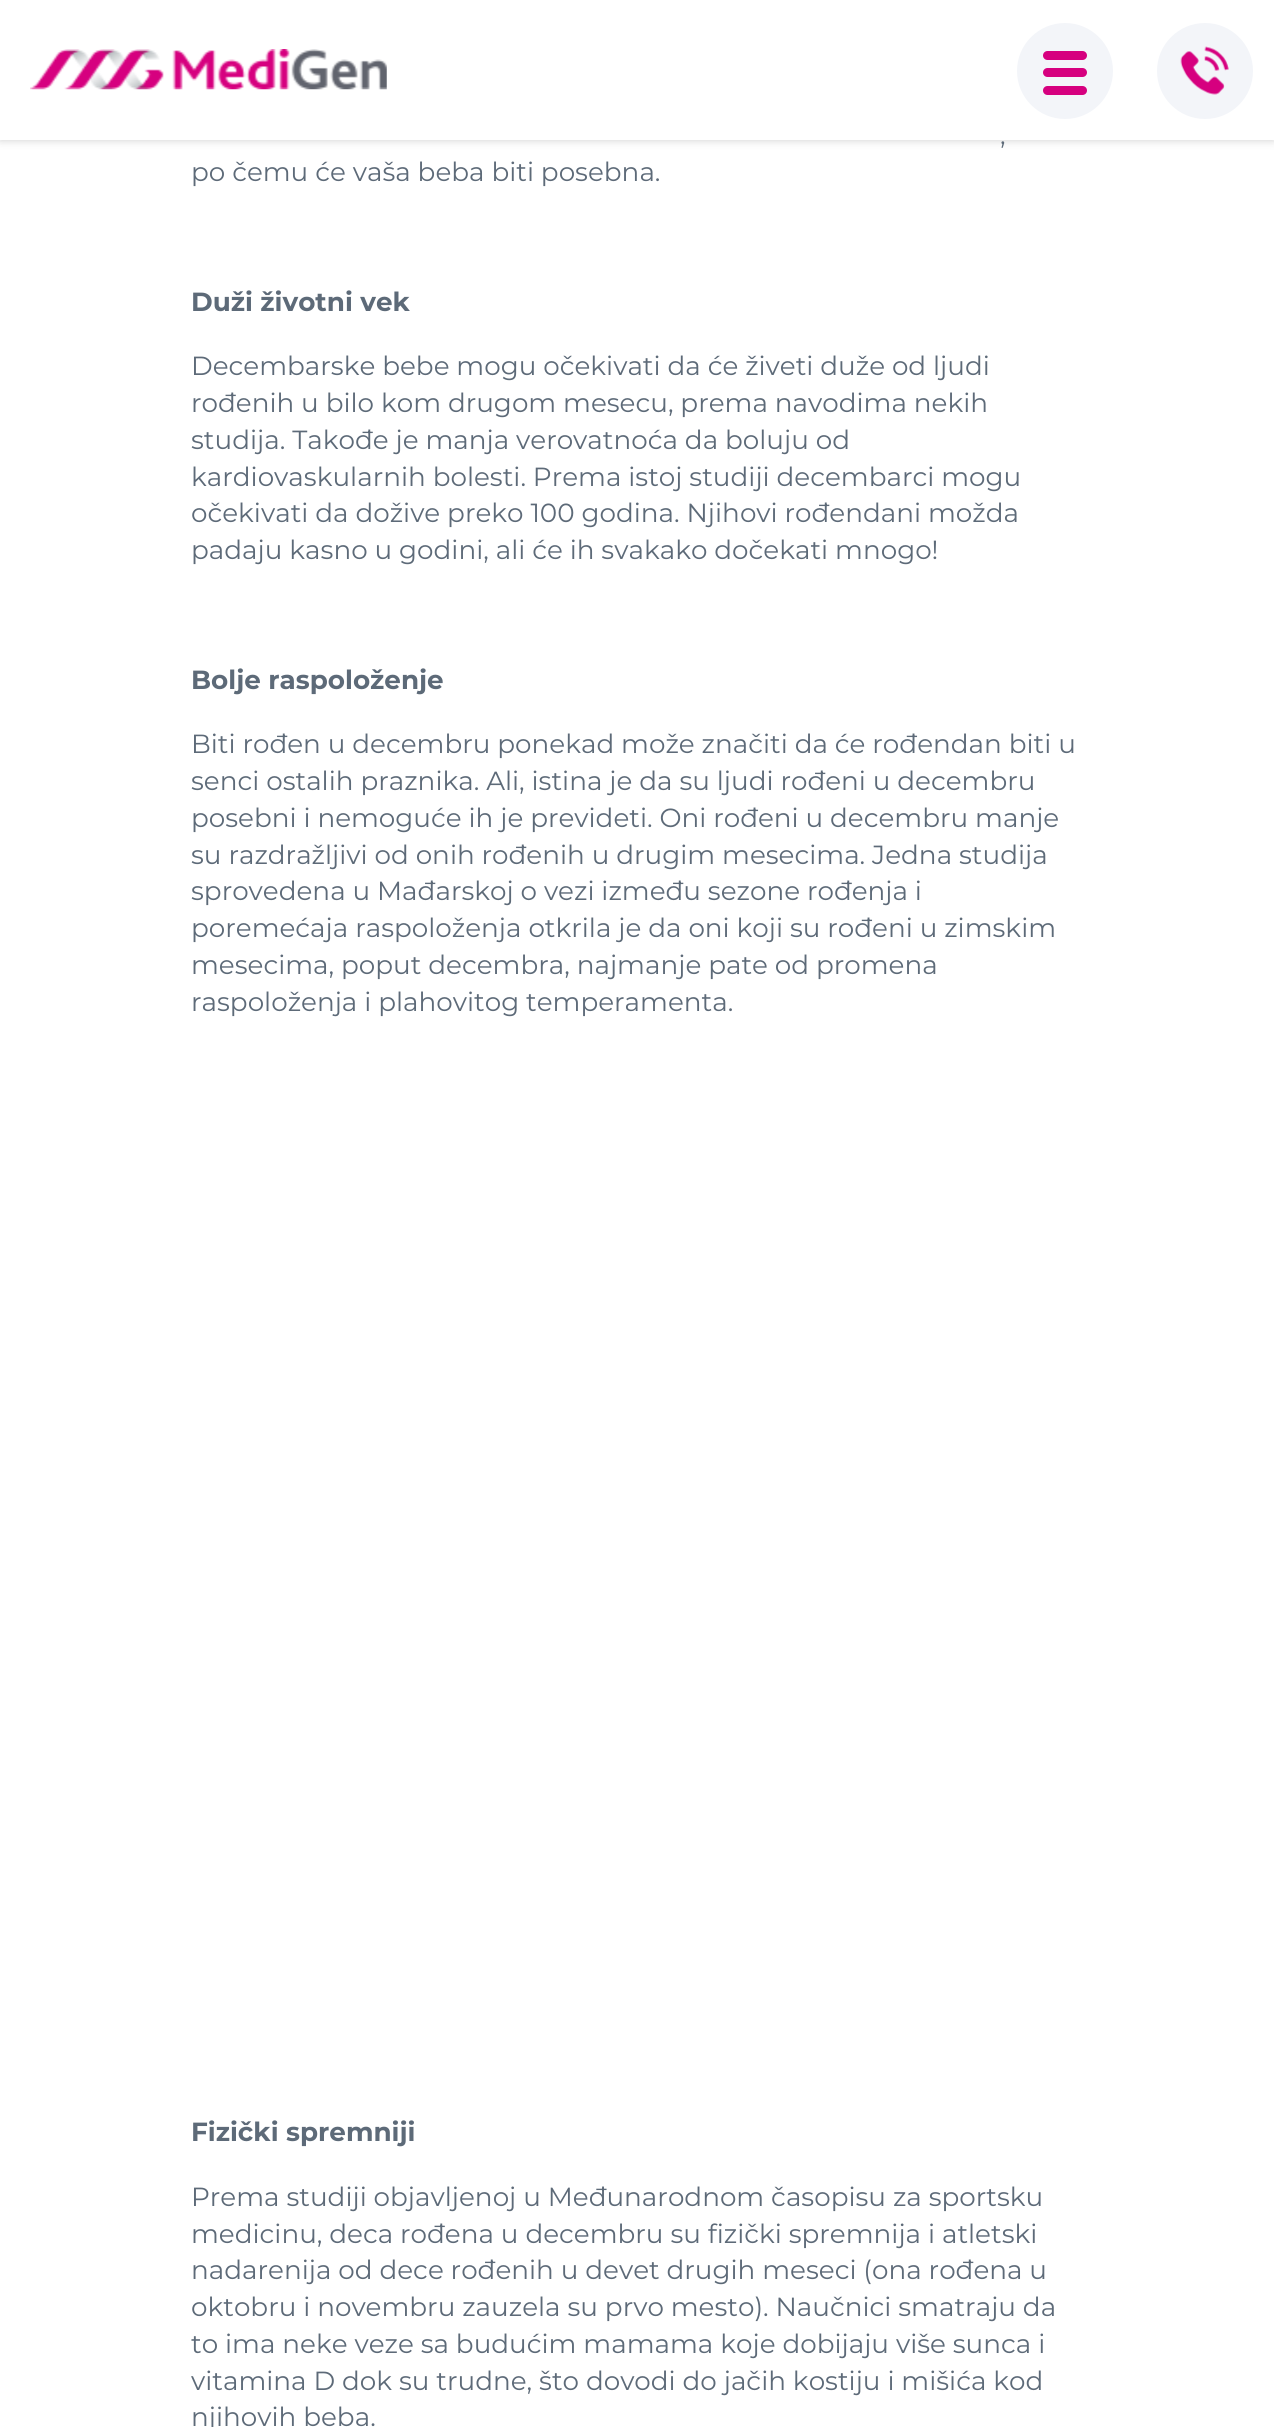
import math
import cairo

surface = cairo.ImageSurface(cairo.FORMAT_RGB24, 1274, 2427)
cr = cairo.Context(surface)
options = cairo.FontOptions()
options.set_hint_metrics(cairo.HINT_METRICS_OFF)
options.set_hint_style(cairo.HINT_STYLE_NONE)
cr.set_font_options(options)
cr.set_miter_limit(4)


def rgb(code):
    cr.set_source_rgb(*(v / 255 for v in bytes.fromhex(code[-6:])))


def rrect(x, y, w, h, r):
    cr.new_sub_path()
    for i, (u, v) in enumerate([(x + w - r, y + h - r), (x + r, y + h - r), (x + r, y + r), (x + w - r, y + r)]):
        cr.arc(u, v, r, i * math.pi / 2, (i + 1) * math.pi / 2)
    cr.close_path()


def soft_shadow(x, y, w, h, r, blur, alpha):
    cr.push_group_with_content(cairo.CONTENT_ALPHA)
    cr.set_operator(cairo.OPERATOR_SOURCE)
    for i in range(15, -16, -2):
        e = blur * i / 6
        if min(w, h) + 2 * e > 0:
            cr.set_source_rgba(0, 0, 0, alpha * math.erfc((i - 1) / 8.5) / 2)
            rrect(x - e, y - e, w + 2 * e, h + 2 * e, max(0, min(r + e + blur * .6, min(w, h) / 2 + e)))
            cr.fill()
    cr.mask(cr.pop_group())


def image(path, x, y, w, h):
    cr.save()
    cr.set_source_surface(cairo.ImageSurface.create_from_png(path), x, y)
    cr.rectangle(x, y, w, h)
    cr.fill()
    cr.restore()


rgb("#ffffff")
cr.paint()
rgb("#000000")
soft_shadow(0, 0, 1274, 140, 0, 4.5, 0.2)
rgb("#ffffff")
cr.rectangle(0, 0, 1274, 140)
cr.fill()
image("img/1.png", 30, 49, 357, 41)
rgb("#f3f5f9")
cr.arc(1065, 71, 48, 0, 2 * math.pi)
cr.fill()
rgb("#d6007f")
rrect(1043, 51, 44, 9, 4.5)
cr.fill()
rrect(1043, 68, 44, 9, 4.5)
cr.fill()
rrect(1043, 86, 44, 9, 4.5)
cr.fill()
rgb("#f3f5f9")
cr.arc(1205, 71, 48, 0, 2 * math.pi)
cr.fill()
image("img/2.png", 1180, 46, 49, 49)
cr.select_font_face("Montserrat")
cr.set_font_size(26.25)
rgb("#5d6a78")
cr.move_to(1000, 144)
cr.show_text(",")
cr.move_to(191, 181)
cr.show_text("po čemu će vaša beba biti posebna.")
cr.select_font_face("Montserrat", cairo.FONT_SLANT_NORMAL, cairo.FONT_WEIGHT_BOLD)
cr.move_to(191, 311)
cr.show_text("Duži životni vek")
cr.select_font_face("Montserrat")
for x, y, s in [
    (191, 375, "Decembarske bebe mogu očekivati da će živeti duže od ljudi"),
    (191, 412, "rođenih u bilo kom drugom mesecu, prema navodima nekih"),
    (191, 449, "studija. Takođe je manja verovatnoća da boluju od"),
    (191, 486, "kardiovaskularnih bolesti. Prema istoj studiji decembarci mogu"),
    (191, 522, "očekivati da dožive preko 100 godina. Njihovi rođendani možda"),
    (191, 559, "padaju kasno u godini, ali će ih svakako dočekati mnogo!"),
]:
    cr.move_to(x, y)
    cr.show_text(s)
cr.select_font_face("Montserrat", cairo.FONT_SLANT_NORMAL, cairo.FONT_WEIGHT_BOLD)
cr.move_to(191, 689)
cr.show_text("Bolje raspoloženje")
cr.select_font_face("Montserrat")
for x, y, s in [
    (191, 753, "Biti rođen u decembru ponekad može značiti da će rođendan biti u"),
    (191, 790, "senci ostalih praznika. Ali, istina je da su ljudi rođeni u decembru"),
    (191, 827, "posebni i nemoguće ih je prevideti. Oni rođeni u decembru manje"),
    (191, 864, "su razdražljivi od onih rođenih u drugim mesecima. Jedna studija"),
    (191, 900, "sprovedena u Mađarskoj o vezi između sezone rođenja i"),
    (191, 937, "poremećaja raspoloženja otkrila je da oni koji su rođeni u zimskim"),
    (191, 974, "mesecima, poput decembra, najmanje pate od promena"),
    (191, 1011, "raspoloženja i plahovitog temperamenta."),
]:
    cr.move_to(x, y)
    cr.show_text(s)
cr.select_font_face("Montserrat", cairo.FONT_SLANT_NORMAL, cairo.FONT_WEIGHT_BOLD)
cr.move_to(191, 2141)
cr.show_text("Fizički spremniji")
cr.select_font_face("Montserrat")
for x, y, s in [
    (191, 2206, "Prema studiji objavljenoj u Međunarodnom časopisu za sportsku"),
    (191, 2243, "medicinu, deca rođena u decembru su fizički spremnija i atletski"),
    (191, 2279, "nadarenija od dece rođenih u devet drugih meseci (ona rođena u"),
    (191, 2316, "oktobru i novembru zauzela su prvo mesto). Naučnici smatraju da"),
    (191, 2353, "to ima neke veze sa budućim mamama koje dobijaju više sunca i"),
    (191, 2390, "vitamina D dok su trudne, što dovodi do jačih kostiju i mišića kod"),
    (191, 2426, "njihovih beba."),
]:
    cr.move_to(x, y)
    cr.show_text(s)
surface.write_to_png("page.png")
